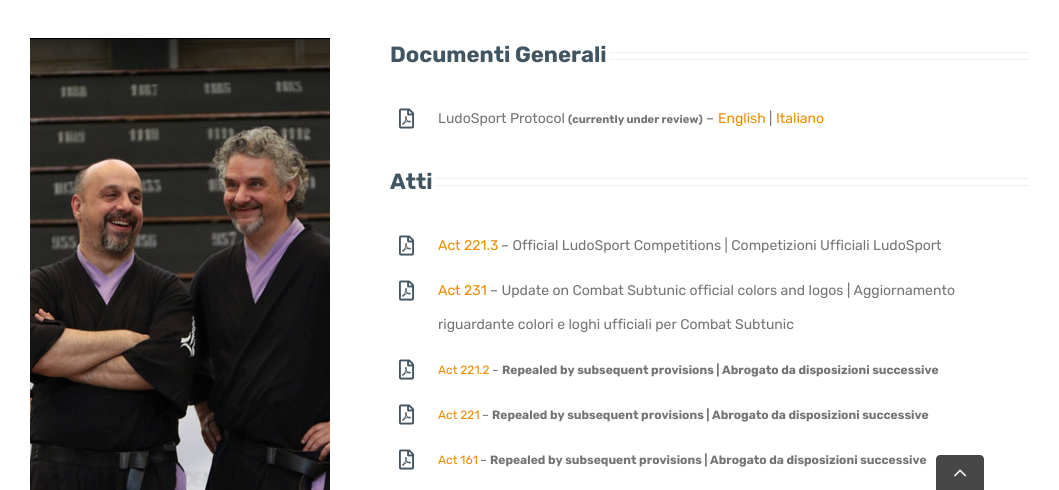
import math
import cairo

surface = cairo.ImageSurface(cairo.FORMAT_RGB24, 1059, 490)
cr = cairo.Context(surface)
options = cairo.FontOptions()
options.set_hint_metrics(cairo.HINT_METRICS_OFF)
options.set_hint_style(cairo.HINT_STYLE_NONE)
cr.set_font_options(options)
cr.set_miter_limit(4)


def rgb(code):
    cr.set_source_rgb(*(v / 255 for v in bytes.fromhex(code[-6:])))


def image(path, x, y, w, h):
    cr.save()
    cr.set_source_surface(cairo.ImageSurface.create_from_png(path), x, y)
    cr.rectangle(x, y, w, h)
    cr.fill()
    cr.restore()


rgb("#ffffff")
cr.paint()
image("img/1.png", 30, 38, 300, 452)
cr.new_path()
cr.move_to(610, 52.5)
cr.line_to(1029, 52.5)
rgb("#e0dede")
cr.set_line_width(1)
cr.set_dash([1, 1])
cr.stroke()
cr.new_path()
cr.move_to(610, 59.5)
cr.line_to(1029, 59.5)
cr.stroke()
image("img/2.png", 399, 108, 15, 21)
cr.new_path()
cr.move_to(436, 178.5)
cr.line_to(1029, 178.5)
cr.stroke()
cr.new_path()
cr.move_to(436, 185.5)
cr.line_to(1029, 185.5)
cr.stroke()
image("img/2.png", 399, 235, 15, 21)
image("img/2.png", 399, 280, 15, 21)
image("img/2.png", 399, 359, 15, 21)
image("img/2.png", 399, 404, 15, 21)
image("img/2.png", 399, 449, 15, 21)
rgb("#474747")
cr.new_path()
cr.move_to(940, 455)
cr.line_to(980, 455)
cr.curve_to(982, 455, 984, 457, 984, 459)
cr.line_to(984, 490)
cr.line_to(936, 490)
cr.line_to(936, 459)
cr.curve_to(936, 457, 938, 455, 940, 455)
cr.close_path()
cr.fill()
image("img/3.png", 954, 469, 13, 8)
cr.select_font_face("Rubik", cairo.FONT_SLANT_NORMAL, cairo.FONT_WEIGHT_BOLD)
cr.set_font_size(22)
rgb("#425563")
cr.move_to(390, 62)
cr.show_text("Documenti Generali")
cr.select_font_face("Rubik")
cr.set_font_size(14)
rgb("#747474")
cr.move_to(438, 123)
cr.show_text("LudoSport Protocol")
cr.select_font_face("Rubik", cairo.FONT_SLANT_NORMAL, cairo.FONT_WEIGHT_BOLD)
cr.set_font_size(11)
cr.move_to(568, 123)
cr.show_text("(currently under review)")
cr.select_font_face("Rubik")
cr.set_font_size(14)
cr.move_to(706, 123)
cr.show_text("–")
rgb("#ed8b00")
cr.move_to(718, 123)
cr.show_text("English")
rgb("#747474")
cr.move_to(769, 123)
cr.show_text("|")
rgb("#ed8b00")
cr.move_to(776, 123)
cr.show_text("Italiano")
cr.select_font_face("Rubik", cairo.FONT_SLANT_NORMAL, cairo.FONT_WEIGHT_BOLD)
cr.set_font_size(22)
rgb("#425563")
cr.move_to(390, 189)
cr.show_text("Atti")
cr.select_font_face("Rubik")
cr.set_font_size(14)
rgb("#ed8b00")
cr.move_to(438, 250)
cr.show_text("Act 221.3")
rgb("#747474")
cr.move_to(501, 250)
cr.show_text("– Official LudoSport Competitions | Competizioni Ufficiali LudoSport")
rgb("#ed8b00")
cr.move_to(438, 295)
cr.show_text("Act 231")
rgb("#747474")
cr.move_to(490, 295)
cr.show_text("– Update on Combat Subtunic official colors and logos | Aggiornamento")
cr.move_to(438, 329)
cr.show_text("riguardante colori e loghi ufficiali per Combat Subtunic")
cr.set_font_size(12)
rgb("#ed8b00")
cr.move_to(438, 374)
cr.show_text("Act 221.2")
rgb("#747474")
cr.move_to(492, 374)
cr.show_text("–")
cr.select_font_face("Rubik", cairo.FONT_SLANT_NORMAL, cairo.FONT_WEIGHT_BOLD)
cr.move_to(502, 374)
cr.show_text("Repealed by subsequent provisions | Abrogato da disposizioni successive")
cr.select_font_face("Rubik")
rgb("#ed8b00")
cr.move_to(438, 419)
cr.show_text("Act 221")
rgb("#747474")
cr.move_to(482, 419)
cr.show_text("–")
cr.select_font_face("Rubik", cairo.FONT_SLANT_NORMAL, cairo.FONT_WEIGHT_BOLD)
cr.move_to(492, 419)
cr.show_text("Repealed by subsequent provisions | Abrogato da disposizioni successive")
cr.select_font_face("Rubik")
rgb("#ed8b00")
cr.move_to(438, 464)
cr.show_text("Act 161")
rgb("#747474")
cr.move_to(480, 464)
cr.show_text("–")
cr.select_font_face("Rubik", cairo.FONT_SLANT_NORMAL, cairo.FONT_WEIGHT_BOLD)
cr.move_to(490, 464)
cr.show_text("Repealed by subsequent provisions | Abrogato da disposizioni successive")
surface.write_to_png("page.png")
